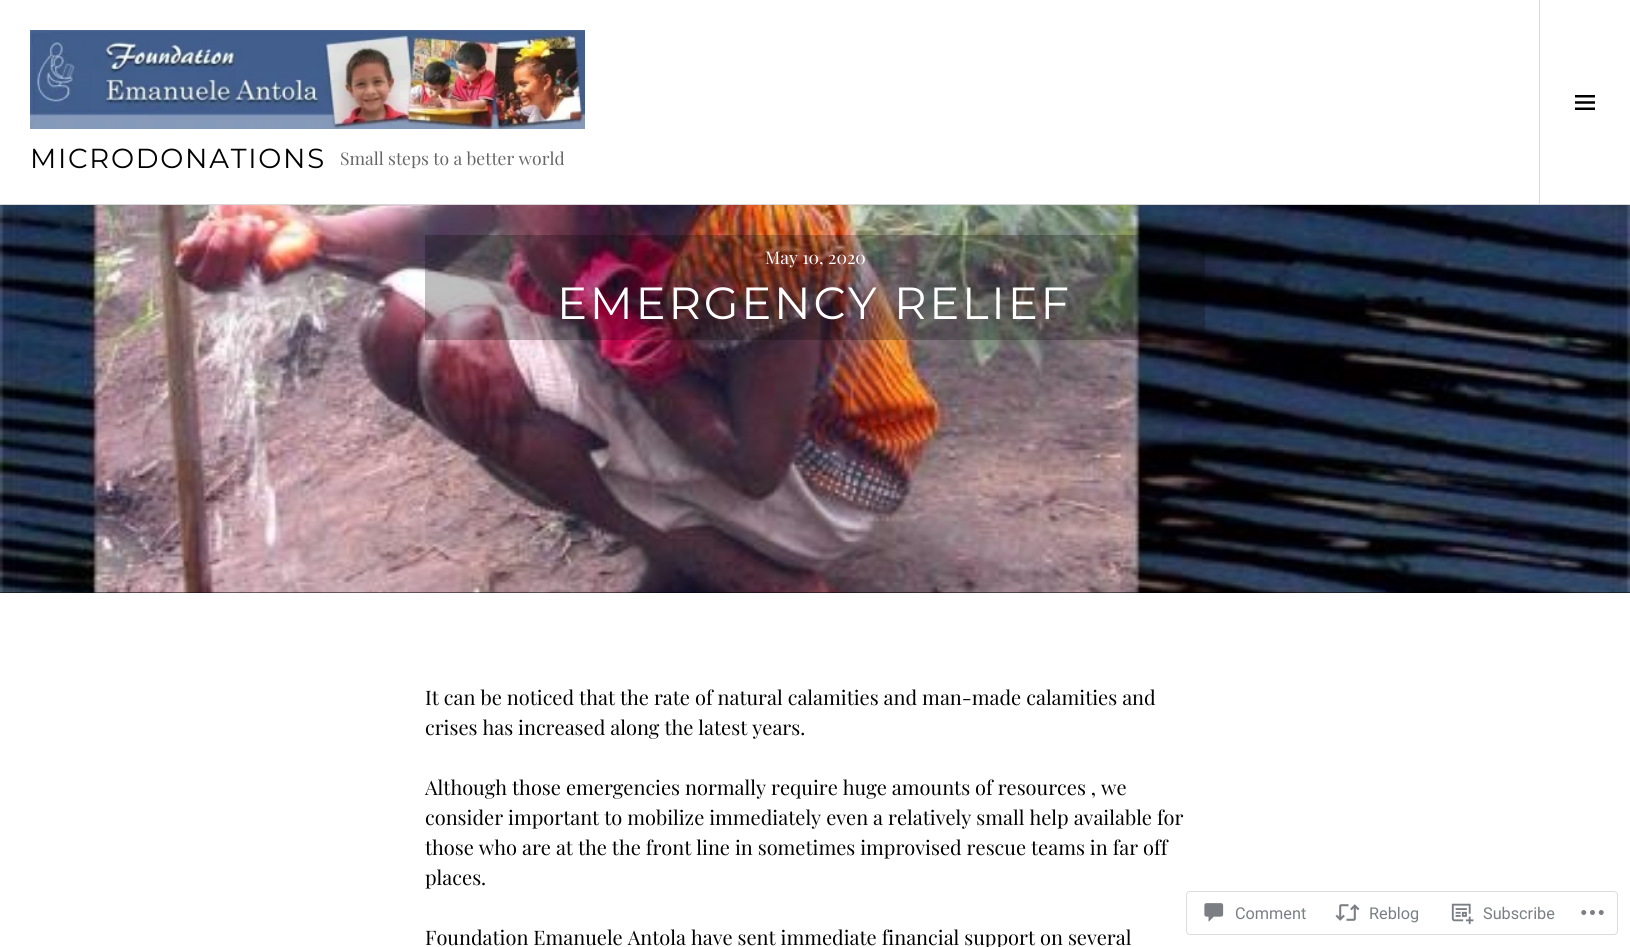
import math
import cairo

surface = cairo.ImageSurface(cairo.FORMAT_RGB24, 1630, 947)
cr = cairo.Context(surface)
options = cairo.FontOptions()
options.set_hint_metrics(cairo.HINT_METRICS_OFF)
options.set_hint_style(cairo.HINT_STYLE_NONE)
cr.set_font_options(options)
cr.set_miter_limit(4)


def rgb(code):
    cr.set_source_rgb(*(v / 255 for v in bytes.fromhex(code[-6:])))


def tracked(x, y, s, letter, word):
    cr.move_to(x, y)
    for ch in s:
        cr.show_text(ch)
        cr.rel_move_to(letter + word * (ch == ' '), 0)


def rrect(x, y, w, h, r):
    cr.new_sub_path()
    for i, (u, v) in enumerate([(x + w - r, y + h - r), (x + r, y + h - r), (x + r, y + r), (x + w - r, y + r)]):
        cr.arc(u, v, r, i * math.pi / 2, (i + 1) * math.pi / 2)
    cr.close_path()


def image(path, x, y, w, h):
    cr.save()
    cr.set_source_surface(cairo.ImageSurface.create_from_png(path), x, y)
    cr.rectangle(x, y, w, h)
    cr.fill()
    cr.restore()


rgb("#ffffff")
cr.paint()
rgb("#d9d9d9")
cr.rectangle(0, 204, 1630, 1)
cr.fill()
image("img/1.png", 30, 30, 555, 99)
cr.rectangle(1539, 0, 1, 204)
cr.fill()
image("img/2.png", 1575, 95, 20, 15)
rgb("#000000")
cr.rectangle(0, 592, 1630, 1)
cr.fill()
image("img/3.png", 0, 205, 1630, 388)
cr.set_source_rgba(0, 0, 0, 0.25)
cr.rectangle(425, 235, 780, 105)
cr.fill()
rrect(1186.5, 891.5, 431, 43, 3.5)
rgb("#dddddf")
cr.set_line_width(1)
cr.stroke()
image("img/4.png", 1204, 903, 20, 19)
image("img/5.png", 1335, 904, 25, 17)
image("img/6.png", 1451, 903, 23, 22)
image("img/7.png", 1581, 910, 23, 5)
cr.select_font_face("Montserrat")
cr.set_font_size(27.5)
rgb("#000000")
tracked(30, 168, "MICRODONATIONS", 1.75, 0)
cr.select_font_face("Playfair Display")
cr.set_font_size(17.5)
rgb("#666666")
cr.move_to(340, 165)
cr.show_text("Small steps to a better world")
rgb("#ffffff")
cr.move_to(765, 264)
cr.show_text("May 10, 2020")
cr.select_font_face("Montserrat")
cr.set_font_size(45)
tracked(557, 319, "EMERGENCY RELIEF", 2.75, 0)
cr.select_font_face("Playfair Display")
cr.set_font_size(20)
rgb("#000000")
for x, y, s in [
    (425, 705, "It can be noticed that the rate of natural calamities and man-made calamities and"),
    (425, 735, "crises has increased along the latest years."),
    (425, 795, "Although those emergencies normally require huge amounts of resources , we"),
    (425, 825, "consider important to mobilize immediately even a relatively small help available for"),
    (425, 855, "those who are at the the front line in sometimes improvised rescue teams in far off"),
    (425, 885, "places."),
    (425, 945, "Foundation Emanuele Antola have sent immediate financial support on several"),
]:
    cr.move_to(x, y)
    cr.show_text(s)
cr.select_font_face("Roboto")
cr.set_font_size(16.25)
rgb("#7b7f85")
for x, y, s in [
    (1235, 919, "Comment"),
    (1369, 919, "Reblog"),
    (1483, 919, "Subscribe"),
]:
    cr.move_to(x, y)
    cr.show_text(s)
surface.write_to_png("page.png")
